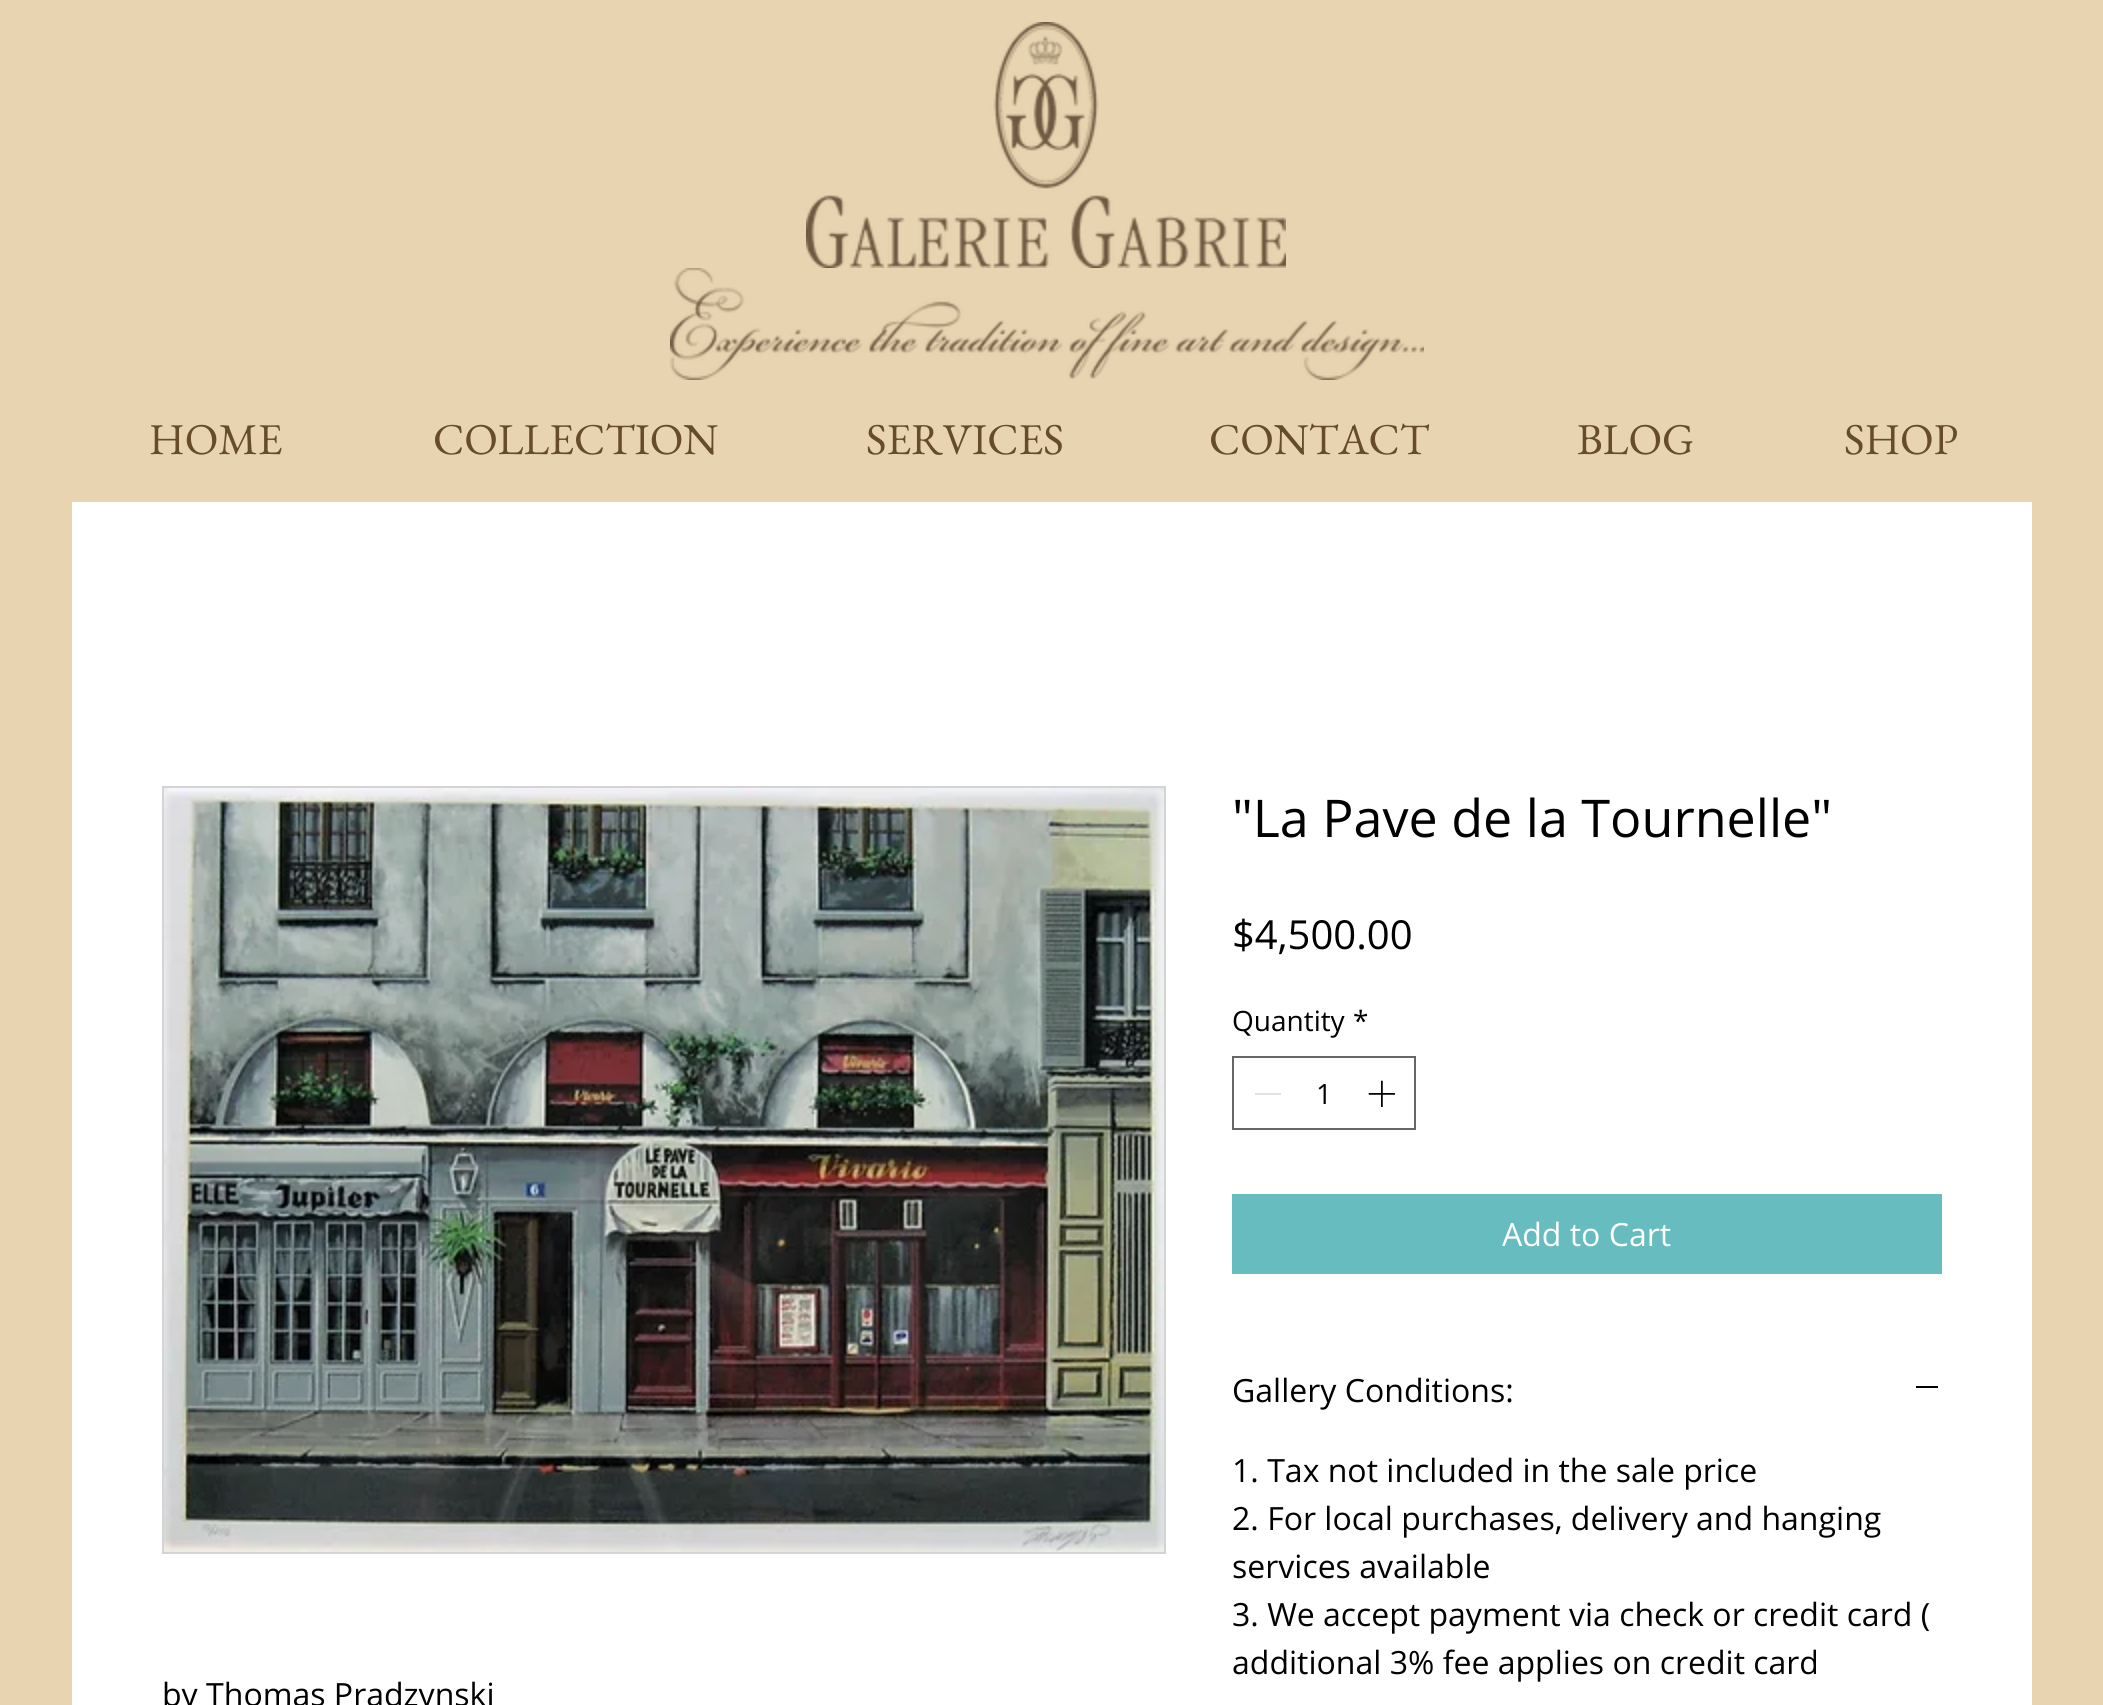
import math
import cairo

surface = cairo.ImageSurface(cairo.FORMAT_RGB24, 2103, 1705)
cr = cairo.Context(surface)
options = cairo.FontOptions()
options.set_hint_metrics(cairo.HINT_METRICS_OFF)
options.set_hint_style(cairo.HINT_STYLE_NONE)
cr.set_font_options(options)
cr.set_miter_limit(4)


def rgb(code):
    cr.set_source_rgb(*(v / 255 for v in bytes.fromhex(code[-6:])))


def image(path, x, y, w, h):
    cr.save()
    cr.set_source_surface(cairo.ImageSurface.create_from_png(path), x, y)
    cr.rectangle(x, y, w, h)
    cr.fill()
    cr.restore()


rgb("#e8d4b1")
cr.paint()
image("img/1.png", 806, 22, 480, 246)
image("img/2.png", 670, 268, 754, 112)
rgb("#ffffff")
cr.rectangle(72, 502, 1960, 1203)
cr.fill()
cr.rectangle(1233, 1057, 182, 72)
rgb("#666666")
cr.stroke()
rgb("#e3e3e3")
cr.rectangle(1255, 1093, 26, 2)
cr.fill()
image("img/3.png", 1368, 1080, 27, 27)
rgb("#67bcbf")
cr.rectangle(1232, 1194, 710, 80)
cr.fill()
rgb("#000000")
cr.rectangle(1916, 1386, 22, 2)
cr.fill()
cr.rectangle(163, 787, 1002, 766)
rgb("#d4d4d4")
cr.stroke()
image("img/4.png", 164, 788, 1000, 764)
cr.select_font_face("EB Garamond")
cr.set_font_size(44)
rgb("#674c2a")
for x, y, s in [
    (149, 454, "HOME"),
    (433, 454, "COLLECTION"),
    (866, 454, "SERVICES"),
    (1209, 454, "CONTACT"),
    (1577, 454, "BLOG"),
    (1844, 454, "SHOP"),
]:
    cr.move_to(x, y)
    cr.show_text(s)
cr.select_font_face("Open Sans")
cr.set_font_size(52)
rgb("#000000")
cr.move_to(1232, 837)
cr.show_text("\"La Pave de la Tournelle\"")
cr.set_font_size(40)
cr.move_to(1232, 949)
cr.show_text("$4,500.00")
cr.set_font_size(28)
for x, y, s in [
    (1232, 1031, "Quantity"),
    (1353, 1031, "*"),
    (1316, 1104, "1"),
]:
    cr.move_to(x, y)
    cr.show_text(s)
cr.set_font_size(32)
rgb("#ffffff")
cr.move_to(1502, 1246)
cr.show_text("Add to Cart")
rgb("#000000")
for x, y, s in [
    (1232, 1402, "Gallery Conditions:"),
    (1232, 1482, "1. Tax not included in the sale price"),
    (1232, 1530, "2. For local purchases, delivery and hanging"),
    (1232, 1578, "services available"),
    (1232, 1626, "3. We accept payment via check or credit card ("),
    (1232, 1674, "additional 3% fee applies on credit card"),
    (162, 1706, "by Thomas Pradzynski"),
]:
    cr.move_to(x, y)
    cr.show_text(s)
surface.write_to_png("page.png")
